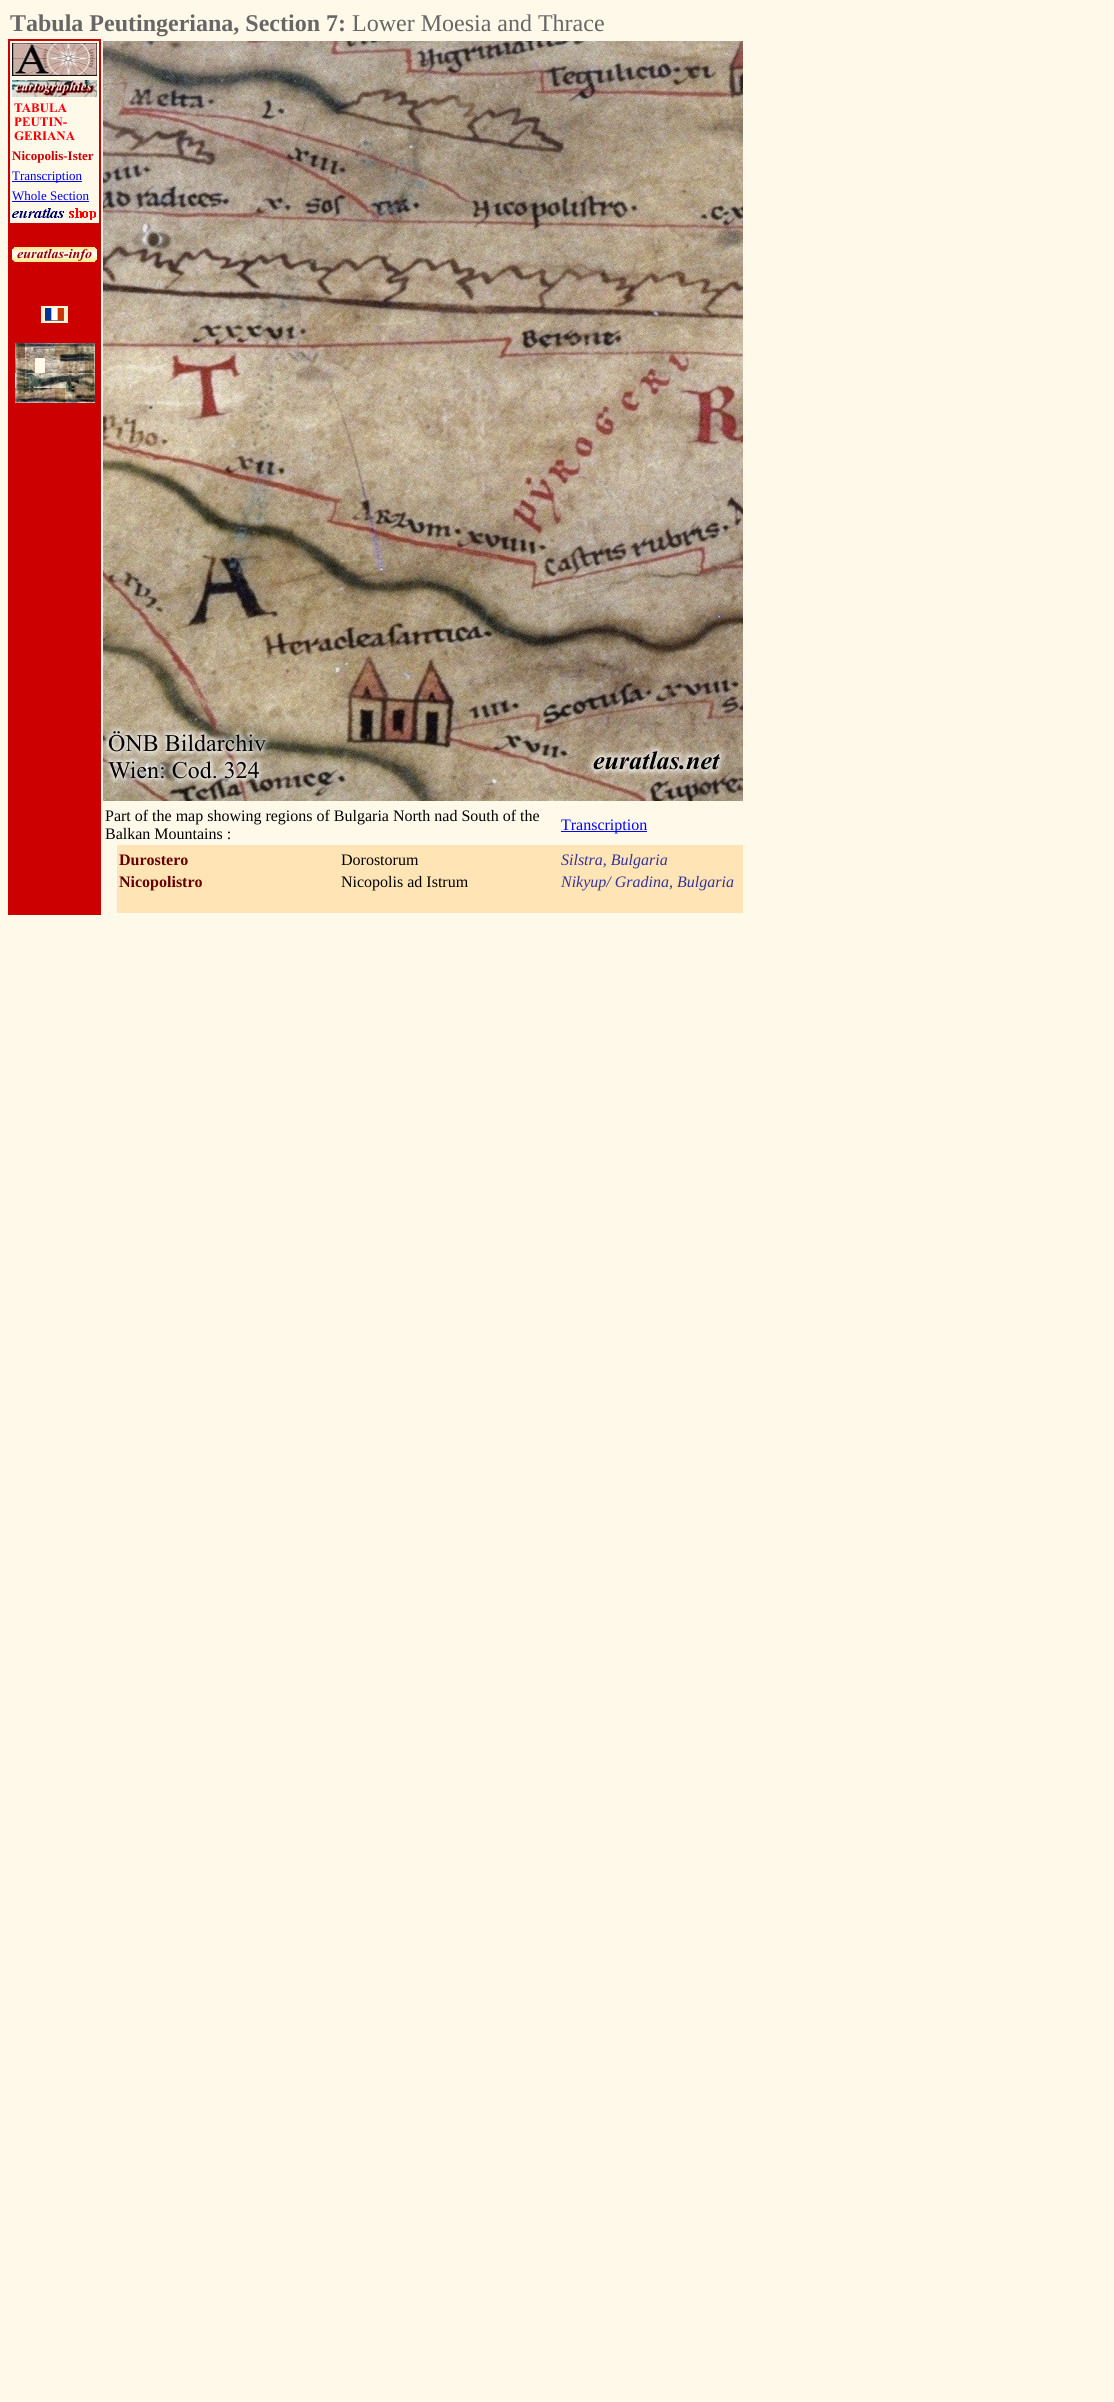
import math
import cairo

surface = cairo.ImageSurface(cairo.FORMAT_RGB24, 1114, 2402)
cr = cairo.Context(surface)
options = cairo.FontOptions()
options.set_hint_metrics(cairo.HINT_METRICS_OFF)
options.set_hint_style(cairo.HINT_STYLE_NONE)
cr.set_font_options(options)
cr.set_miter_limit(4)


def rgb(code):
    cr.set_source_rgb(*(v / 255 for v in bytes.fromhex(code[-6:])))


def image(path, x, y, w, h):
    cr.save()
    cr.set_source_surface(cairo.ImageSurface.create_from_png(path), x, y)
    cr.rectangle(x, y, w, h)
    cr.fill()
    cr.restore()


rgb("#fef9e9")
cr.paint()
rgb("#cc0000")
cr.rectangle(8, 39, 93, 876)
cr.fill()
rgb("#fef9e9")
cr.rectangle(10, 41, 89, 182)
cr.fill()
image("img/1.png", 12, 43, 85, 33)
image("img/2.png", 12, 80, 85, 17)
image("img/3.png", 14, 103, 61, 38)
rgb("#0000ff")
cr.rectangle(12, 181, 70, 1)
cr.fill()
cr.rectangle(12, 201, 77, 1)
cr.fill()
image("img/4.png", 12, 208, 84, 12)
image("img/5.png", 12, 247, 85, 15)
image("img/6.png", 41, 306, 27, 17)
rgb("#fef9e9")
cr.rectangle(35, 358, 10, 15)
cr.fill()
image("img/7.png", 15, 343, 10, 15)
image("img/8.png", 25, 343, 10, 15)
image("img/9.png", 35, 343, 10, 15)
image("img/10.png", 45, 343, 10, 15)
image("img/11.png", 55, 343, 10, 15)
image("img/12.png", 65, 343, 10, 15)
image("img/13.png", 75, 343, 10, 15)
image("img/14.png", 85, 343, 10, 15)
image("img/15.png", 15, 358, 10, 15)
image("img/16.png", 25, 358, 10, 15)
image("img/17.png", 45, 358, 10, 15)
image("img/18.png", 55, 358, 10, 15)
image("img/19.png", 65, 358, 10, 15)
image("img/20.png", 75, 358, 10, 15)
image("img/21.png", 85, 358, 10, 15)
image("img/22.png", 15, 373, 10, 15)
image("img/23.png", 25, 373, 10, 15)
image("img/24.png", 35, 373, 10, 15)
image("img/25.png", 45, 373, 10, 15)
image("img/26.png", 55, 373, 10, 15)
image("img/27.png", 65, 373, 10, 15)
image("img/28.png", 75, 373, 10, 15)
image("img/29.png", 85, 373, 10, 15)
image("img/30.png", 15, 388, 10, 15)
image("img/31.png", 25, 388, 10, 15)
image("img/32.png", 35, 388, 10, 15)
image("img/33.png", 45, 388, 10, 15)
image("img/34.png", 55, 388, 10, 15)
image("img/35.png", 65, 388, 10, 15)
image("img/36.png", 75, 388, 10, 15)
image("img/37.png", 85, 388, 10, 15)
image("img/38.png", 103, 41, 640, 760)
for x, y, w, h, color in [
    (561, 831, 86, 1, "#0000ff"),
    (117, 845, 626, 4, "#ffe4b5"),
    (117, 849, 626, 22, "#ffe4b5"),
    (117, 871, 626, 22, "#ffe4b5"),
    (117, 893, 626, 4, "#ffe4b5"),
    (117, 897, 626, 4, "#ffe4b5"),
    (117, 901, 626, 4, "#ffe4b5"),
    (117, 905, 626, 4, "#ffe4b5"),
    (117, 909, 626, 4, "#ffe4b5"),
]:
    rgb(color)
    cr.rectangle(x, y, w, h)
    cr.fill()
cr.select_font_face("Liberation Serif", cairo.FONT_SLANT_NORMAL, cairo.FONT_WEIGHT_BOLD)
cr.set_font_size(24)
rgb("#666666")
cr.move_to(10, 31)
cr.show_text("Tabula Peutingeriana, Section 7:")
cr.select_font_face("Liberation Serif")
cr.move_to(352, 31)
cr.show_text("Lower Moesia and Thrace")
cr.select_font_face("Liberation Serif", cairo.FONT_SLANT_NORMAL, cairo.FONT_WEIGHT_BOLD)
cr.set_font_size(13)
rgb("#cc0000")
cr.move_to(12, 160)
cr.show_text("Nicopolis-Ister")
cr.select_font_face("Liberation Serif")
rgb("#0000ff")
cr.move_to(12, 180)
cr.show_text("Transcription")
cr.move_to(12, 200)
cr.show_text("Whole Section")
cr.set_font_size(16)
rgb("#000000")
cr.move_to(105, 821)
cr.show_text("Part of the map showing regions of Bulgaria North nad South of the")
cr.move_to(105, 839)
cr.show_text("Balkan Mountains :")
rgb("#0000ff")
cr.move_to(561, 830)
cr.show_text("Transcription")
cr.select_font_face("Liberation Serif", cairo.FONT_SLANT_NORMAL, cairo.FONT_WEIGHT_BOLD)
rgb("#660000")
cr.move_to(119, 865)
cr.show_text("Durostero")
cr.select_font_face("Liberation Serif")
rgb("#000000")
cr.move_to(341, 865)
cr.show_text("Dorostorum")
cr.select_font_face("Liberation Serif", cairo.FONT_SLANT_ITALIC)
rgb("#333399")
cr.move_to(561, 865)
cr.show_text("Silstra, Bulgaria")
cr.select_font_face("Liberation Serif", cairo.FONT_SLANT_NORMAL, cairo.FONT_WEIGHT_BOLD)
rgb("#660000")
cr.move_to(119, 887)
cr.show_text("Nicopolistro")
cr.select_font_face("Liberation Serif")
rgb("#000000")
cr.move_to(341, 887)
cr.show_text("Nicopolis ad Istrum")
cr.select_font_face("Liberation Serif", cairo.FONT_SLANT_ITALIC)
rgb("#333399")
cr.move_to(561, 887)
cr.show_text("Nikyup/ Gradina, Bulgaria")
surface.write_to_png("page.png")
